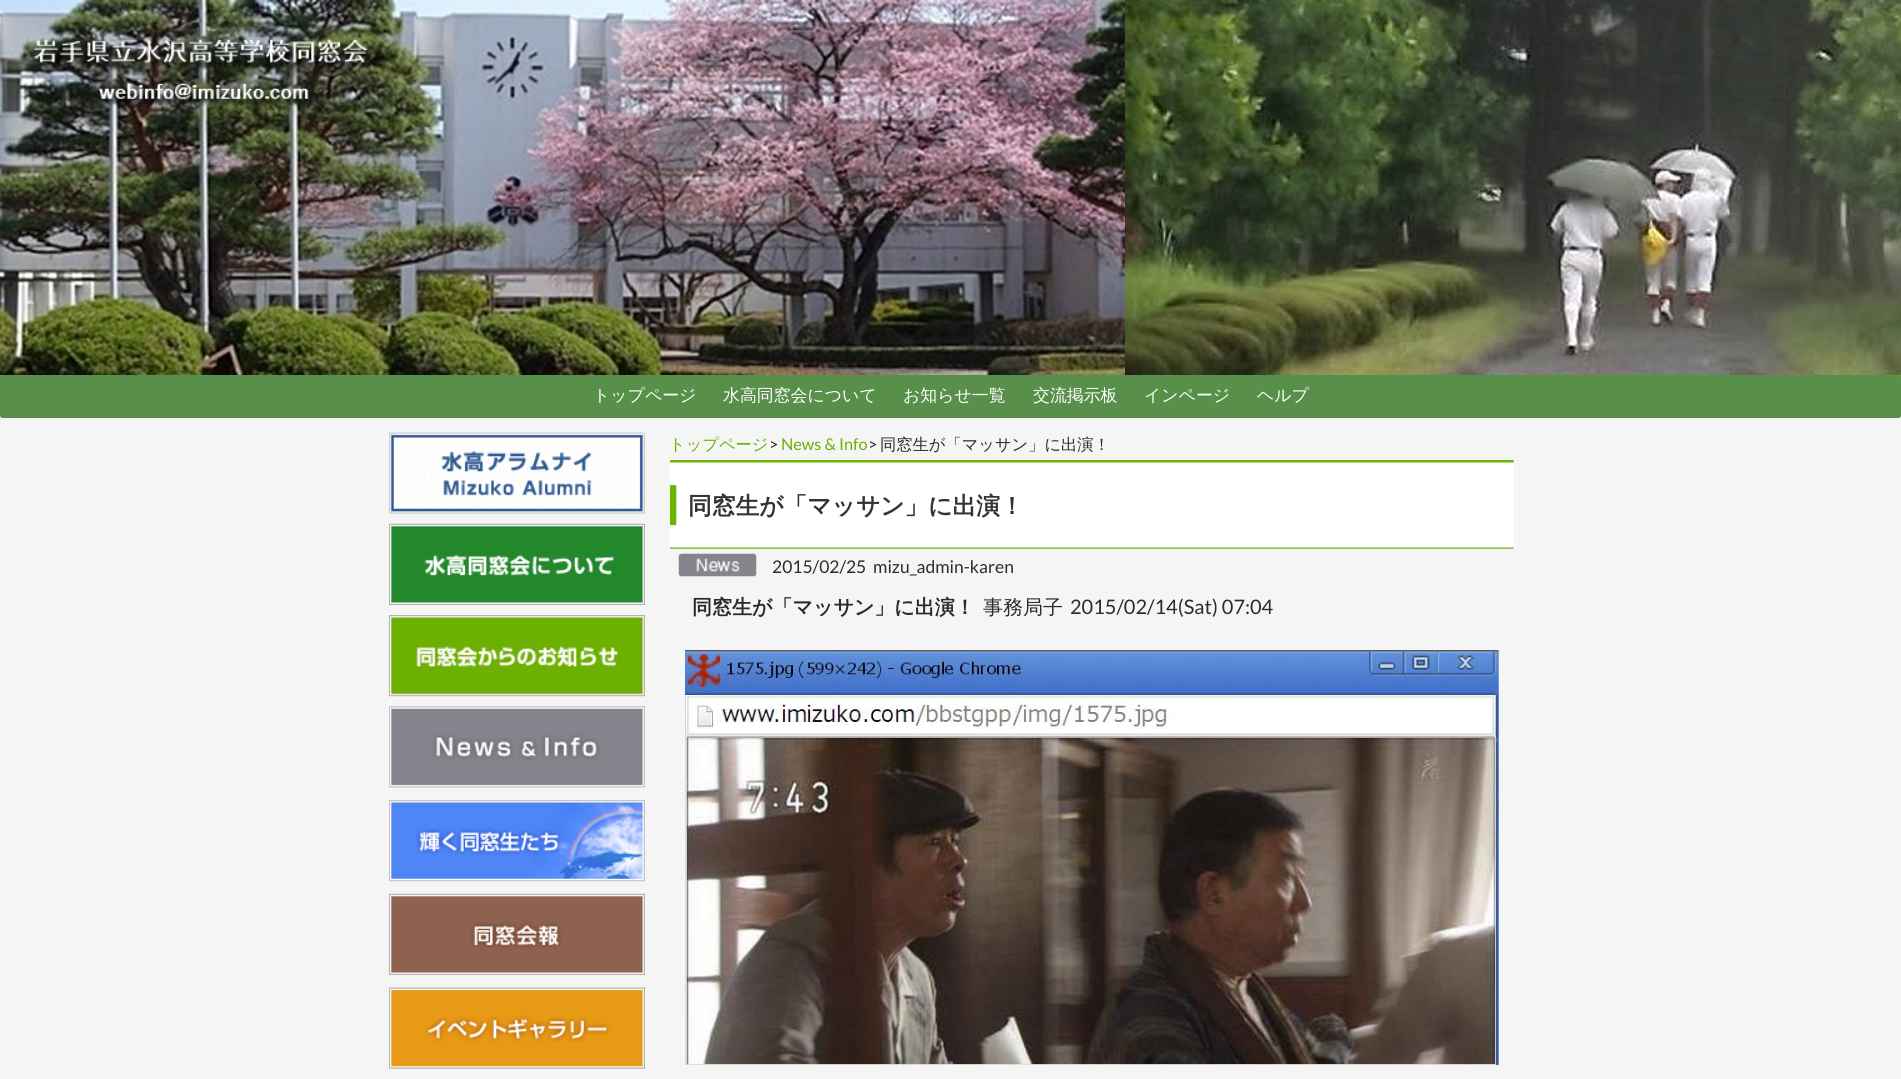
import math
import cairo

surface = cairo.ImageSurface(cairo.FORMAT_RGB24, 1901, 1079)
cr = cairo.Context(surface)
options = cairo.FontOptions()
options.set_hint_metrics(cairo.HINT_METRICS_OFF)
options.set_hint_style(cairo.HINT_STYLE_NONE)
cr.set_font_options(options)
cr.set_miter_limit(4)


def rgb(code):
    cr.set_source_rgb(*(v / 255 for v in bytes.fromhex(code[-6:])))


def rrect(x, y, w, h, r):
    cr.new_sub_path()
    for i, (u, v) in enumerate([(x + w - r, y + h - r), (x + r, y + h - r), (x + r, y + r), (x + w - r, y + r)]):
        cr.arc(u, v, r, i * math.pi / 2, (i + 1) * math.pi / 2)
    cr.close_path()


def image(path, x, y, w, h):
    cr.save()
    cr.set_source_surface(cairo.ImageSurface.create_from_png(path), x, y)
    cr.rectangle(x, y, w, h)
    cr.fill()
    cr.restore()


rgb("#f5f5f5")
cr.paint()
image("img/1.png", 0, 375, 1901, 43)
image("img/2.png", 0, 0, 1125, 375)
image("img/3.png", 1125, 0, 776, 375)
rgb("#588f4b")
rrect(0, 375, 1901, 43, 2.5)
cr.fill()
image("img/4.png", 389, 432, 256, 82)
image("img/5.png", 388, 523, 257, 82)
image("img/6.png", 388, 615, 257, 82)
image("img/7.png", 389, 706, 256, 82)
image("img/8.png", 389, 800, 256, 82)
image("img/9.png", 388, 893, 257, 82)
image("img/10.png", 388, 987, 257, 82)
image("img/11.png", 670, 460, 844, 89)
image("img/12.png", 678, 553, 79, 24)
image("img/13.png", 685, 650, 814, 415)
cr.select_font_face("WenQuanYi Zen Hei Medium")
cr.set_font_size(16.9)
rgb("#ffffff")
for x, y, s in [
    (593, 401, "トップページ"),
    (723, 401, "水高同窓会について"),
    (903, 401, "お知らせ一覧"),
    (1033, 401, "交流掲示板"),
    (1144, 401, "インページ"),
    (1257, 401, "ヘルプ"),
]:
    cr.move_to(x, y)
    cr.show_text(s)
cr.set_font_size(16.25)
rgb("#6cb000")
cr.move_to(669, 450)
cr.show_text("トップページ")
cr.select_font_face("Lato")
rgb("#2b2b2b")
cr.move_to(769, 450)
cr.show_text(">")
rgb("#6cb000")
cr.move_to(781, 450)
cr.show_text("News & Info")
rgb("#2b2b2b")
cr.move_to(868, 450)
cr.show_text(">")
cr.select_font_face("WenQuanYi Zen Hei Medium")
cr.move_to(880, 450)
cr.show_text("同窓生が「マッサン」に出演！")
cr.select_font_face("WenQuanYi Zen Hei", cairo.FONT_SLANT_NORMAL, cairo.FONT_WEIGHT_BOLD)
cr.set_font_size(23.75)
rgb("#333333")
cr.move_to(688, 514)
cr.show_text("同窓生が「マッサン」に出演！")
cr.select_font_face("Lato")
cr.set_font_size(17.5)
rgb("#2b2b2b")
cr.move_to(772, 573)
cr.show_text("2015/02/25  mizu_admin-karen")
cr.select_font_face("WenQuanYi Zen Hei", cairo.FONT_SLANT_NORMAL, cairo.FONT_WEIGHT_BOLD)
cr.set_font_size(20)
cr.move_to(692, 614)
cr.show_text("同窓生が「マッサン」に出演！")
cr.select_font_face("WenQuanYi Zen Hei Medium")
cr.move_to(983, 614)
cr.show_text("事務局子")
cr.select_font_face("Lato")
cr.move_to(1070, 614)
cr.show_text("2015/02/14(Sat) 07:04")
surface.write_to_png("page.png")
